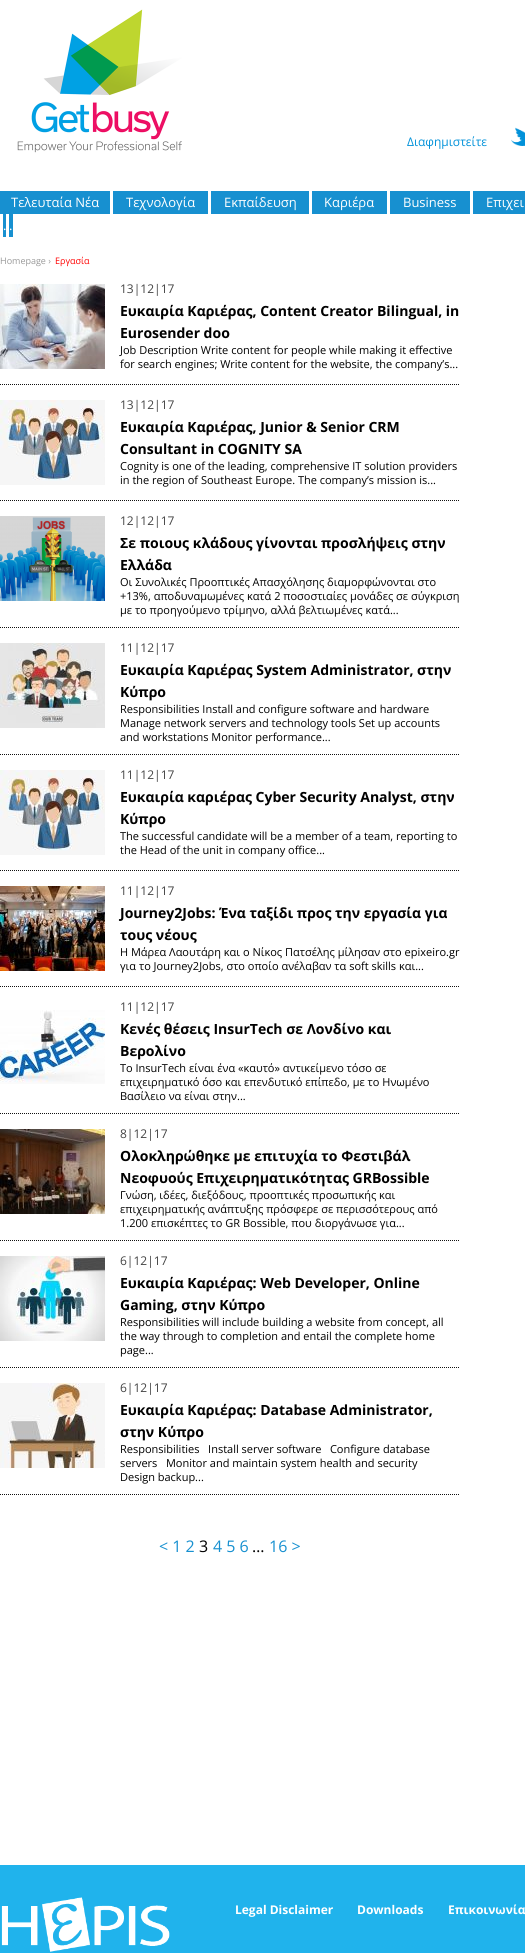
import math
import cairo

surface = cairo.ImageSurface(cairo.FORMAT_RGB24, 525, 1953)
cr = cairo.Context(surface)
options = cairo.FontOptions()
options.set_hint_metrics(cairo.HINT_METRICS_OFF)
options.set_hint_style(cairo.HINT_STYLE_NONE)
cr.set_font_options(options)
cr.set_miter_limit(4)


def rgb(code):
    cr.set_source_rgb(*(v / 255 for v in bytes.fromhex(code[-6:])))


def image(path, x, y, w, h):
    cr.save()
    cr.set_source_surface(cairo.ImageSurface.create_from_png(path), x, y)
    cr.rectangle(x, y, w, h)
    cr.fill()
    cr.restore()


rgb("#ffffff")
cr.paint()
image("img/1.png", 17, 9, 165, 144)
image("img/2.png", 511, 127, 14, 19)
for x, y, w, h, color in [
    (0, 191, 110, 23, "#1790d0"),
    (113, 191, 95, 23, "#1790d0"),
    (211, 191, 98, 23, "#1790d0"),
    (312, 191, 75, 23, "#1790d0"),
    (390, 191, 80, 23, "#1790d0"),
    (473, 191, 52, 23, "#1790d0"),
    (3, 214, 3, 23, "#1790d0"),
    (9, 214, 4, 23, "#1790d0"),
]:
    rgb(color)
    cr.rectangle(x, y, w, h)
    cr.fill()
cr.new_path()
cr.move_to(0, 384.5)
cr.line_to(460, 384.5)
rgb("#121212")
cr.set_line_width(1)
cr.set_dash([1, 1])
cr.stroke()
image("img/3.png", 0, 284, 105, 85)
cr.new_path()
cr.move_to(0, 500.5)
cr.line_to(460, 500.5)
cr.stroke()
image("img/4.png", 0, 400, 105, 85)
cr.new_path()
cr.move_to(0, 627.5)
cr.line_to(460, 627.5)
cr.stroke()
image("img/5.png", 0, 516, 105, 85)
cr.new_path()
cr.move_to(0, 754.5)
cr.line_to(460, 754.5)
cr.stroke()
image("img/6.png", 0, 643, 105, 85)
cr.new_path()
cr.move_to(0, 870.5)
cr.line_to(460, 870.5)
cr.stroke()
image("img/4.png", 0, 770, 105, 85)
cr.new_path()
cr.move_to(0, 986.5)
cr.line_to(460, 986.5)
cr.stroke()
image("img/7.png", 0, 886, 105, 85)
cr.new_path()
cr.move_to(0, 1113.5)
cr.line_to(460, 1113.5)
cr.stroke()
image("img/8.png", 0, 1010, 105, 74)
cr.new_path()
cr.move_to(0, 1240.5)
cr.line_to(460, 1240.5)
cr.stroke()
image("img/9.png", 0, 1129, 105, 85)
cr.new_path()
cr.move_to(0, 1367.5)
cr.line_to(460, 1367.5)
cr.stroke()
image("img/10.png", 0, 1256, 105, 85)
cr.new_path()
cr.move_to(0, 1494.5)
cr.line_to(460, 1494.5)
cr.stroke()
image("img/11.png", 0, 1383, 105, 85)
rgb("#20b3ec")
cr.rectangle(0, 1865, 525, 88)
cr.fill()
image("img/12.png", 1, 1897, 169, 55)
cr.select_font_face("Open Sans")
cr.set_font_size(12)
rgb("#0091d9")
cr.move_to(407, 146)
cr.show_text("Διαφημιστείτε")
cr.set_font_size(13)
rgb("#ffffff")
for x, y, s in [
    (11, 207, "Τελευταία Νέα"),
    (126, 207, "Τεχνολογία"),
    (224, 207, "Εκπαίδευση"),
    (324, 207, "Καριέρα"),
    (403, 207, "Business"),
    (486, 207, "Επιχει"),
    (3, 230, "."),
    (9, 230, "."),
]:
    cr.move_to(x, y)
    cr.show_text(s)
cr.set_font_size(9)
rgb("#999999")
cr.move_to(0, 264)
cr.show_text("Homepage ›")
rgb("#ff0000")
cr.move_to(55, 264)
cr.show_text("Εργασία")
cr.set_font_size(12)
rgb("#444444")
cr.move_to(120, 293)
cr.show_text("13|12|17")
cr.select_font_face("Open Sans", cairo.FONT_SLANT_NORMAL, cairo.FONT_WEIGHT_BOLD)
cr.set_font_size(14)
rgb("#000000")
cr.move_to(120, 316)
cr.show_text("Ευκαιρία Καριέρας, Content Creator Bilingual, in")
cr.move_to(120, 338)
cr.show_text("Eurosender doo")
cr.select_font_face("Open Sans")
cr.set_font_size(11)
cr.move_to(120, 354)
cr.show_text("Job Description Write content for people while making it effective")
cr.move_to(120, 368)
cr.show_text("for search engines; Write content for the website, the company’s...")
cr.set_font_size(12)
rgb("#444444")
cr.move_to(120, 409)
cr.show_text("13|12|17")
cr.select_font_face("Open Sans", cairo.FONT_SLANT_NORMAL, cairo.FONT_WEIGHT_BOLD)
cr.set_font_size(14)
rgb("#000000")
cr.move_to(120, 432)
cr.show_text("Ευκαιρία Καριέρας, Junior & Senior CRM")
cr.move_to(120, 454)
cr.show_text("Consultant in COGNITY SA")
cr.select_font_face("Open Sans")
cr.set_font_size(11)
cr.move_to(120, 470)
cr.show_text("Cognity is one of the leading, comprehensive IT solution providers")
cr.move_to(120, 484)
cr.show_text("in the region of Southeast Europe. The company’s mission is...")
cr.set_font_size(12)
rgb("#444444")
cr.move_to(120, 525)
cr.show_text("12|12|17")
cr.select_font_face("Open Sans", cairo.FONT_SLANT_NORMAL, cairo.FONT_WEIGHT_BOLD)
cr.set_font_size(14)
rgb("#000000")
cr.move_to(120, 548)
cr.show_text("Σε ποιους κλάδους γίνονται προσλήψεις στην")
cr.move_to(120, 570)
cr.show_text("Ελλάδα")
cr.select_font_face("Open Sans")
cr.set_font_size(11)
for x, y, s in [
    (120, 586, "Οι Συνολικές Προοπτικές Απασχόλησης διαμορφώνονται στο"),
    (120, 600, "+13%, αποδυναμωμένες κατά 2 ποσοστιαίες μονάδες σε σύγκριση"),
    (120, 614, "με το προηγούμενο τρίμηνο, αλλά βελτιωμένες κατά..."),
]:
    cr.move_to(x, y)
    cr.show_text(s)
cr.set_font_size(12)
rgb("#444444")
cr.move_to(120, 652)
cr.show_text("11|12|17")
cr.select_font_face("Open Sans", cairo.FONT_SLANT_NORMAL, cairo.FONT_WEIGHT_BOLD)
cr.set_font_size(14)
rgb("#000000")
cr.move_to(120, 675)
cr.show_text("Ευκαιρία Καριέρας System Administrator, στην")
cr.move_to(120, 697)
cr.show_text("Κύπρο")
cr.select_font_face("Open Sans")
cr.set_font_size(11)
for x, y, s in [
    (120, 713, "Responsibilities Install and configure software and hardware"),
    (120, 727, "Manage network servers and technology tools Set up accounts"),
    (120, 741, "and workstations Monitor performance..."),
]:
    cr.move_to(x, y)
    cr.show_text(s)
cr.set_font_size(12)
rgb("#444444")
cr.move_to(120, 779)
cr.show_text("11|12|17")
cr.select_font_face("Open Sans", cairo.FONT_SLANT_NORMAL, cairo.FONT_WEIGHT_BOLD)
cr.set_font_size(14)
rgb("#000000")
cr.move_to(120, 802)
cr.show_text("Ευκαιρία καριέρας Cyber Security Analyst, στην")
cr.move_to(120, 824)
cr.show_text("Κύπρο")
cr.select_font_face("Open Sans")
cr.set_font_size(11)
cr.move_to(120, 840)
cr.show_text("The successful candidate will be a member of a team, reporting to")
cr.move_to(120, 854)
cr.show_text("the Head of the unit in company office...")
cr.set_font_size(12)
rgb("#444444")
cr.move_to(120, 895)
cr.show_text("11|12|17")
cr.select_font_face("Open Sans", cairo.FONT_SLANT_NORMAL, cairo.FONT_WEIGHT_BOLD)
cr.set_font_size(14)
rgb("#000000")
cr.move_to(120, 918)
cr.show_text("Journey2Jobs: Ένα ταξίδι προς την εργασία για")
cr.move_to(120, 940)
cr.show_text("τους νέους")
cr.select_font_face("Open Sans")
cr.set_font_size(11)
cr.move_to(120, 956)
cr.show_text("Η Μάρεα Λαουτάρη και ο Νίκος Πατσέλης μίλησαν στο epixeiro.gr")
cr.move_to(120, 970)
cr.show_text("για το Journey2Jobs, στο οποίο ανέλαβαν τα soft skills και...")
cr.set_font_size(12)
rgb("#444444")
cr.move_to(120, 1011)
cr.show_text("11|12|17")
cr.select_font_face("Open Sans", cairo.FONT_SLANT_NORMAL, cairo.FONT_WEIGHT_BOLD)
cr.set_font_size(14)
rgb("#000000")
cr.move_to(120, 1034)
cr.show_text("Κενές θέσεις InsurTech σε Λονδίνο και")
cr.move_to(120, 1056)
cr.show_text("Βερολίνο")
cr.select_font_face("Open Sans")
cr.set_font_size(11)
for x, y, s in [
    (120, 1072, "Το InsurTech είναι ένα «καυτό» αντικείμενο τόσο σε"),
    (120, 1086, "επιχειρηματικό όσο και επενδυτικό επίπεδο, με το Ηνωμένο"),
    (120, 1100, "Βασίλειο να είναι στην..."),
]:
    cr.move_to(x, y)
    cr.show_text(s)
cr.set_font_size(12)
rgb("#444444")
cr.move_to(120, 1138)
cr.show_text("8|12|17")
cr.select_font_face("Open Sans", cairo.FONT_SLANT_NORMAL, cairo.FONT_WEIGHT_BOLD)
cr.set_font_size(14)
rgb("#000000")
cr.move_to(120, 1161)
cr.show_text("Ολοκληρώθηκε με επιτυχία το Φεστιβάλ")
cr.move_to(120, 1183)
cr.show_text("Νεοφυούς Επιχειρηματικότητας GRBossible")
cr.select_font_face("Open Sans")
cr.set_font_size(11)
for x, y, s in [
    (120, 1199, "Γνώση, ιδέες, διεξόδους, προοπτικές προσωπικής και"),
    (120, 1213, "επιχειρηματικής ανάπτυξης πρόσφερε σε περισσότερους από"),
    (120, 1227, "1.200 επισκέπτες το GR Bossible, που διοργάνωσε για..."),
]:
    cr.move_to(x, y)
    cr.show_text(s)
cr.set_font_size(12)
rgb("#444444")
cr.move_to(120, 1265)
cr.show_text("6|12|17")
cr.select_font_face("Open Sans", cairo.FONT_SLANT_NORMAL, cairo.FONT_WEIGHT_BOLD)
cr.set_font_size(14)
rgb("#000000")
cr.move_to(120, 1288)
cr.show_text("Ευκαιρία Καριέρας: Web Developer, Online")
cr.move_to(120, 1310)
cr.show_text("Gaming, στην Κύπρο")
cr.select_font_face("Open Sans")
cr.set_font_size(11)
for x, y, s in [
    (120, 1326, "Responsibilities will include building a website from concept, all"),
    (120, 1340, "the way through to completion and entail the complete home"),
    (120, 1354, "page..."),
]:
    cr.move_to(x, y)
    cr.show_text(s)
cr.set_font_size(12)
rgb("#444444")
cr.move_to(120, 1392)
cr.show_text("6|12|17")
cr.select_font_face("Open Sans", cairo.FONT_SLANT_NORMAL, cairo.FONT_WEIGHT_BOLD)
cr.set_font_size(14)
rgb("#000000")
cr.move_to(120, 1415)
cr.show_text("Ευκαιρία Καριέρας: Database Administrator,")
cr.move_to(120, 1437)
cr.show_text("στην Κύπρο")
cr.select_font_face("Open Sans")
cr.set_font_size(11)
for x, y, s in [
    (120, 1453, "Responsibilities   Install server software   Configure database"),
    (120, 1467, "servers   Monitor and maintain system health and security"),
    (120, 1481, "Design backup..."),
]:
    cr.move_to(x, y)
    cr.show_text(s)
cr.set_font_size(16)
rgb("#1790d0")
cr.move_to(159, 1552)
cr.show_text("< 1 2")
rgb("#000000")
cr.move_to(199, 1552)
cr.show_text("3")
rgb("#1790d0")
cr.move_to(213, 1552)
cr.show_text("4 5 6")
rgb("#000000")
cr.move_to(252, 1552)
cr.show_text("…")
rgb("#1790d0")
cr.move_to(269, 1552)
cr.show_text("16 >")
cr.select_font_face("Open Sans", cairo.FONT_SLANT_NORMAL, cairo.FONT_WEIGHT_BOLD)
cr.set_font_size(12)
rgb("#ffffff")
for x, y, s in [
    (235, 1914, "Legal Disclaimer"),
    (357, 1914, "Downloads"),
    (448, 1914, "Επικοινωνία"),
]:
    cr.move_to(x, y)
    cr.show_text(s)
surface.write_to_png("page.png")
